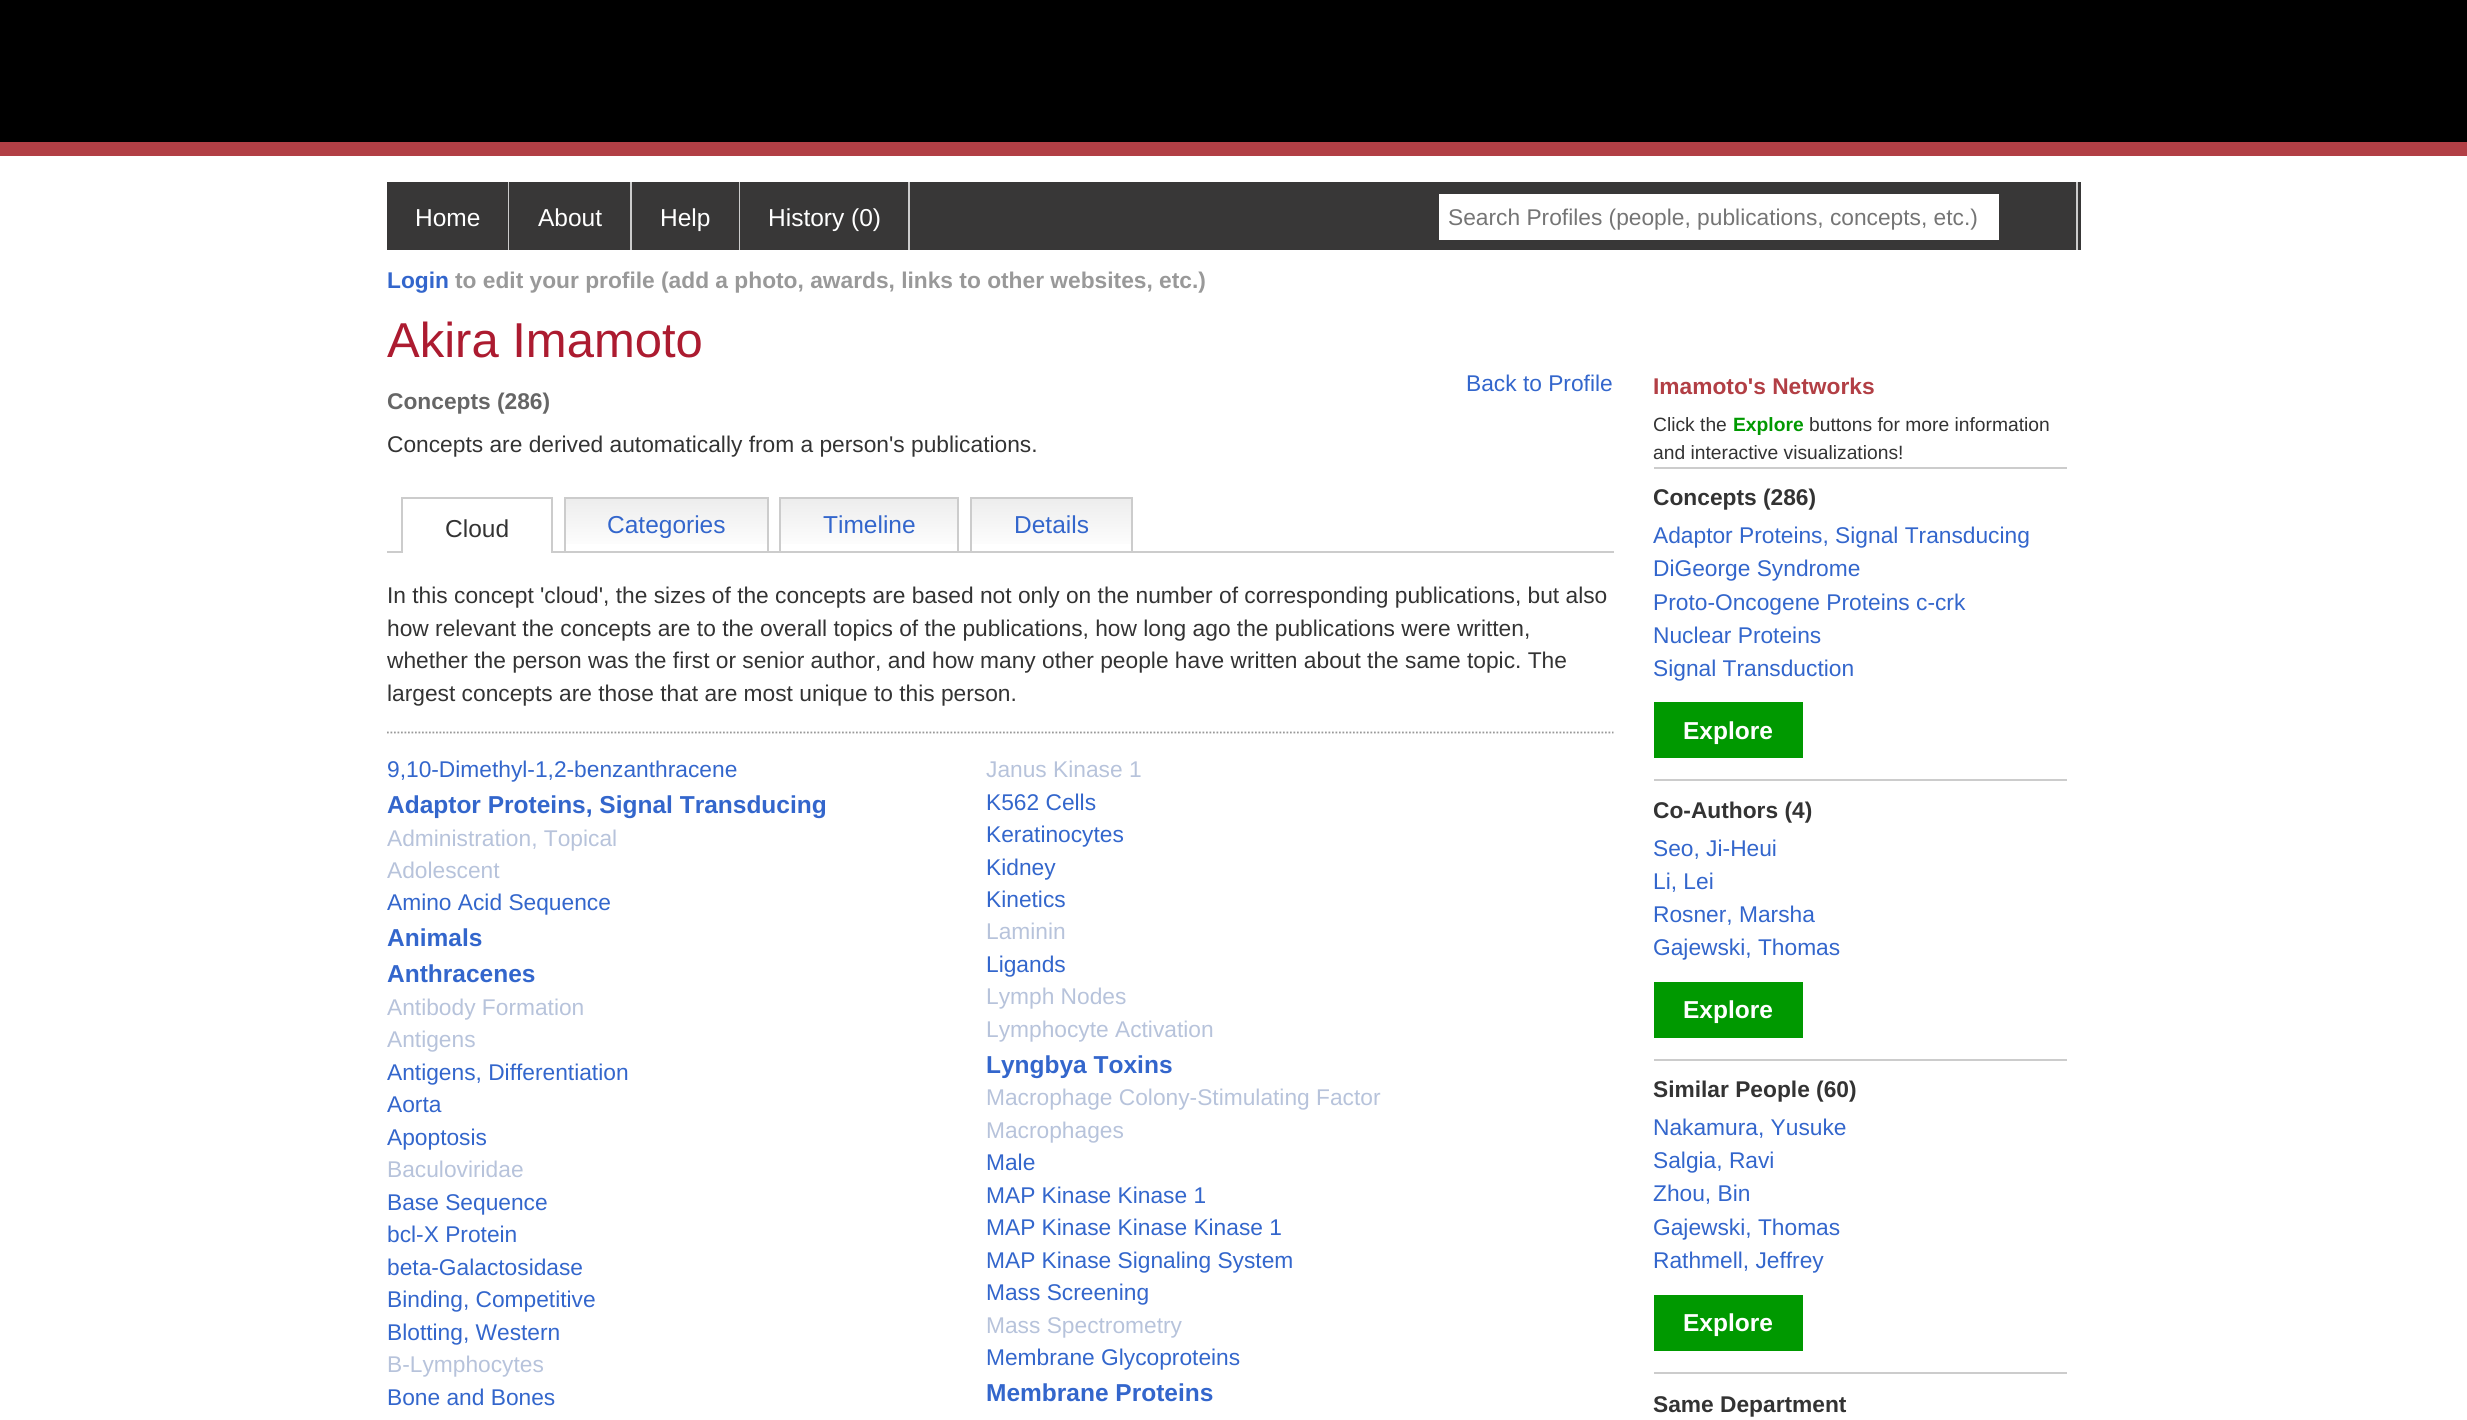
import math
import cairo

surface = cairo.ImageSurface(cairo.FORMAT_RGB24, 2467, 1420)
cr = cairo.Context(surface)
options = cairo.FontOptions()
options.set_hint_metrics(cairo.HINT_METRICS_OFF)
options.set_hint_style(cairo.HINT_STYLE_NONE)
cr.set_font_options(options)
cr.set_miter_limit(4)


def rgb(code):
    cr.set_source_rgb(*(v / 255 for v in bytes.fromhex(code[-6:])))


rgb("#ffffff")
cr.paint()
for x, y, w, h, color in [
    (0, 0, 2467, 142, "#000000"),
    (0, 142, 2467, 14, "#b23f45"),
    (387, 182, 1694, 68, "#383737"),
    (508, 182, 1, 68, "#cccccc"),
    (630, 182, 2, 68, "#cccccc"),
    (739, 182, 1, 68, "#cccccc"),
    (908, 182, 2, 68, "#cccccc"),
    (1439, 194, 560, 46, "#ffffff"),
    (2076, 182, 2, 68, "#cccccc"),
    (387, 551, 1227, 2, "#cccccc"),
    (403, 551, 148, 2, "#ffffff"),
    (401, 497, 152, 2, "#cccccc"),
    (551, 497, 2, 56, "#cccccc"),
    (401, 497, 2, 56, "#cccccc"),
]:
    rgb(color)
    cr.rectangle(x, y, w, h)
    cr.fill()
gradient = cairo.LinearGradient(666, 499, 666, 551)
gradient.add_color_stop_rgba(0, 0.929, 0.929, 0.929, 1)
gradient.add_color_stop_rgba(1, 1, 1, 1, 1)
cr.set_source(gradient)
cr.rectangle(566, 499, 201, 45)
cr.fill()
for x, y, w, h, color in [
    (564, 497, 204, 2, "#cccccc"),
    (767, 497, 2, 54, "#cccccc"),
    (564, 497, 2, 54, "#cccccc"),
]:
    rgb(color)
    cr.rectangle(x, y, w, h)
    cr.fill()
gradient = cairo.LinearGradient(869, 499, 869, 551)
gradient.add_color_stop_rgba(0, 0.929, 0.929, 0.929, 1)
gradient.add_color_stop_rgba(1, 1, 1, 1, 1)
cr.set_source(gradient)
cr.rectangle(781, 499, 176, 45)
cr.fill()
for x, y, w, h, color in [
    (779, 497, 180, 2, "#cccccc"),
    (957, 497, 2, 54, "#cccccc"),
    (779, 497, 2, 54, "#cccccc"),
]:
    rgb(color)
    cr.rectangle(x, y, w, h)
    cr.fill()
gradient = cairo.LinearGradient(1051, 499, 1051, 551)
gradient.add_color_stop_rgba(0, 0.929, 0.929, 0.929, 1)
gradient.add_color_stop_rgba(1, 1, 1, 1, 1)
cr.set_source(gradient)
cr.rectangle(972, 499, 159, 45)
cr.fill()
for x, y, w, h, color in [
    (970, 497, 162, 2, "#cccccc"),
    (1131, 497, 2, 54, "#cccccc"),
    (970, 497, 2, 54, "#cccccc"),
]:
    rgb(color)
    cr.rectangle(x, y, w, h)
    cr.fill()
cr.new_path()
cr.move_to(387, 732.5)
cr.line_to(1613.5, 732.5)
rgb("#999999")
cr.set_line_width(1.8)
cr.set_dash([1.75, 1.75])
cr.stroke()
for x, y, w, h, color in [
    (1654, 467, 413, 2, "#cccccc"),
    (1654, 702, 149, 56, "#009900"),
    (1654, 779, 413, 2, "#cccccc"),
    (1654, 982, 149, 56, "#009900"),
    (1654, 1059, 413, 2, "#cccccc"),
    (1654, 1295, 149, 56, "#009900"),
    (1654, 1372, 413, 2, "#cccccc"),
]:
    rgb(color)
    cr.rectangle(x, y, w, h)
    cr.fill()
cr.select_font_face("Liberation Sans")
cr.set_font_size(24.5)
rgb("#ffffff")
for x, y, s in [
    (415, 226, "Home"),
    (538, 226, "About"),
    (660, 226, "Help"),
    (768, 226, "History (0)"),
]:
    cr.move_to(x, y)
    cr.show_text(s)
cr.set_font_size(22.75)
rgb("#757575")
cr.move_to(1448, 225)
cr.show_text("Search Profiles (people, publications, concepts, etc.)")
cr.select_font_face("Liberation Sans", cairo.FONT_SLANT_NORMAL, cairo.FONT_WEIGHT_BOLD)
rgb("#3366cc")
cr.move_to(387, 288)
cr.show_text("Login")
rgb("#999999")
cr.move_to(455, 288)
cr.show_text("to edit your profile (add a photo, awards, links to other websites, etc.)")
cr.select_font_face("Liberation Sans")
cr.set_font_size(49)
rgb("#ac1b30")
cr.move_to(387, 357)
cr.show_text("Akira Imamoto")
cr.set_font_size(22.75)
rgb("#3366cc")
cr.move_to(1466, 391)
cr.show_text("Back to Profile")
cr.select_font_face("Liberation Sans", cairo.FONT_SLANT_NORMAL, cairo.FONT_WEIGHT_BOLD)
rgb("#666666")
cr.move_to(387, 409)
cr.show_text("Concepts (286)")
cr.select_font_face("Liberation Sans")
rgb("#333333")
cr.move_to(387, 452)
cr.show_text("Concepts are derived automatically from a person's publications.")
cr.set_font_size(24.5)
cr.move_to(445, 537)
cr.show_text("Cloud")
rgb("#3366cc")
for x, y, s in [
    (607, 533, "Categories"),
    (823, 533, "Timeline"),
    (1014, 533, "Details"),
]:
    cr.move_to(x, y)
    cr.show_text(s)
cr.set_font_size(22.75)
rgb("#333333")
for x, y, s in [
    (387, 603, "In this concept 'cloud', the sizes of the concepts are based not only on the number of corresponding publications, but also"),
    (387, 636, "how relevant the concepts are to the overall topics of the publications, how long ago the publications were written,"),
    (387, 668, "whether the person was the first or senior author, and how many other people have written about the same topic. The"),
    (387, 701, "largest concepts are those that are most unique to this person."),
]:
    cr.move_to(x, y)
    cr.show_text(s)
rgb("#3366cc")
cr.move_to(387, 777)
cr.show_text("9,10-Dimethyl-1,2-benzanthracene")
cr.select_font_face("Liberation Sans", cairo.FONT_SLANT_NORMAL, cairo.FONT_WEIGHT_BOLD)
cr.set_font_size(24.5)
cr.move_to(387, 813)
cr.show_text("Adaptor Proteins, Signal Transducing")
cr.select_font_face("Liberation Sans")
cr.set_font_size(22.75)
rgb("#b7c3db")
cr.move_to(387, 846)
cr.show_text("Administration, Topical")
cr.move_to(387, 878)
cr.show_text("Adolescent")
rgb("#3366cc")
cr.move_to(387, 910)
cr.show_text("Amino Acid Sequence")
cr.select_font_face("Liberation Sans", cairo.FONT_SLANT_NORMAL, cairo.FONT_WEIGHT_BOLD)
cr.set_font_size(24.5)
cr.move_to(387, 946)
cr.show_text("Animals")
cr.move_to(387, 982)
cr.show_text("Anthracenes")
cr.select_font_face("Liberation Sans")
cr.set_font_size(22.75)
rgb("#b7c3db")
cr.move_to(387, 1015)
cr.show_text("Antibody Formation")
cr.move_to(387, 1047)
cr.show_text("Antigens")
rgb("#3366cc")
for x, y, s in [
    (387, 1080, "Antigens, Differentiation"),
    (387, 1112, "Aorta"),
    (387, 1145, "Apoptosis"),
]:
    cr.move_to(x, y)
    cr.show_text(s)
rgb("#b7c3db")
cr.move_to(387, 1177)
cr.show_text("Baculoviridae")
rgb("#3366cc")
for x, y, s in [
    (387, 1210, "Base Sequence"),
    (387, 1242, "bcl-X Protein"),
    (387, 1275, "beta-Galactosidase"),
    (387, 1307, "Binding, Competitive"),
    (387, 1340, "Blotting, Western"),
]:
    cr.move_to(x, y)
    cr.show_text(s)
rgb("#b7c3db")
cr.move_to(387, 1372)
cr.show_text("B-Lymphocytes")
rgb("#3366cc")
cr.move_to(387, 1405)
cr.show_text("Bone and Bones")
rgb("#b7c3db")
cr.move_to(986, 777)
cr.show_text("Janus Kinase 1")
rgb("#3366cc")
for x, y, s in [
    (986, 810, "K562 Cells"),
    (986, 842, "Keratinocytes"),
    (986, 875, "Kidney"),
    (986, 907, "Kinetics"),
]:
    cr.move_to(x, y)
    cr.show_text(s)
rgb("#b7c3db")
cr.move_to(986, 939)
cr.show_text("Laminin")
rgb("#3366cc")
cr.move_to(986, 972)
cr.show_text("Ligands")
rgb("#b7c3db")
cr.move_to(986, 1004)
cr.show_text("Lymph Nodes")
cr.move_to(986, 1037)
cr.show_text("Lymphocyte Activation")
cr.select_font_face("Liberation Sans", cairo.FONT_SLANT_NORMAL, cairo.FONT_WEIGHT_BOLD)
cr.set_font_size(24.5)
rgb("#3366cc")
cr.move_to(986, 1073)
cr.show_text("Lyngbya Toxins")
cr.select_font_face("Liberation Sans")
cr.set_font_size(22.75)
rgb("#b7c3db")
cr.move_to(986, 1105)
cr.show_text("Macrophage Colony-Stimulating Factor")
cr.move_to(986, 1138)
cr.show_text("Macrophages")
rgb("#3366cc")
for x, y, s in [
    (986, 1170, "Male"),
    (986, 1203, "MAP Kinase Kinase 1"),
    (986, 1235, "MAP Kinase Kinase Kinase 1"),
    (986, 1268, "MAP Kinase Signaling System"),
    (986, 1300, "Mass Screening"),
]:
    cr.move_to(x, y)
    cr.show_text(s)
rgb("#b7c3db")
cr.move_to(986, 1333)
cr.show_text("Mass Spectrometry")
rgb("#3366cc")
cr.move_to(986, 1365)
cr.show_text("Membrane Glycoproteins")
cr.select_font_face("Liberation Sans", cairo.FONT_SLANT_NORMAL, cairo.FONT_WEIGHT_BOLD)
cr.set_font_size(24.5)
cr.move_to(986, 1401)
cr.show_text("Membrane Proteins")
cr.set_font_size(22.75)
rgb("#b23f45")
cr.move_to(1653, 394)
cr.show_text("Imamoto's Networks")
cr.select_font_face("Liberation Sans")
cr.set_font_size(19.25)
rgb("#333333")
cr.move_to(1653, 431)
cr.show_text("Click the")
cr.select_font_face("Liberation Sans", cairo.FONT_SLANT_NORMAL, cairo.FONT_WEIGHT_BOLD)
rgb("#009900")
cr.move_to(1733, 431)
cr.show_text("Explore")
cr.select_font_face("Liberation Sans")
rgb("#333333")
cr.move_to(1809, 431)
cr.show_text("buttons for more information")
cr.move_to(1653, 459)
cr.show_text("and interactive visualizations!")
cr.select_font_face("Liberation Sans", cairo.FONT_SLANT_NORMAL, cairo.FONT_WEIGHT_BOLD)
cr.set_font_size(22.75)
cr.move_to(1653, 505)
cr.show_text("Concepts (286)")
cr.select_font_face("Liberation Sans")
rgb("#3366cc")
for x, y, s in [
    (1653, 543, "Adaptor Proteins, Signal Transducing"),
    (1653, 576, "DiGeorge Syndrome"),
    (1653, 610, "Proto-Oncogene Proteins c-crk"),
    (1653, 643, "Nuclear Proteins"),
    (1653, 676, "Signal Transduction"),
]:
    cr.move_to(x, y)
    cr.show_text(s)
cr.select_font_face("Liberation Sans", cairo.FONT_SLANT_NORMAL, cairo.FONT_WEIGHT_BOLD)
cr.set_font_size(24.5)
rgb("#ffffff")
cr.move_to(1683, 739)
cr.show_text("Explore")
cr.set_font_size(22.75)
rgb("#333333")
cr.move_to(1653, 818)
cr.show_text("Co-Authors (4)")
cr.select_font_face("Liberation Sans")
rgb("#3366cc")
for x, y, s in [
    (1653, 856, "Seo, Ji-Heui"),
    (1653, 889, "Li, Lei"),
    (1653, 922, "Rosner, Marsha"),
    (1653, 955, "Gajewski, Thomas"),
]:
    cr.move_to(x, y)
    cr.show_text(s)
cr.select_font_face("Liberation Sans", cairo.FONT_SLANT_NORMAL, cairo.FONT_WEIGHT_BOLD)
cr.set_font_size(24.5)
rgb("#ffffff")
cr.move_to(1683, 1018)
cr.show_text("Explore")
cr.set_font_size(22.75)
rgb("#333333")
cr.move_to(1653, 1097)
cr.show_text("Similar People (60)")
cr.select_font_face("Liberation Sans")
rgb("#3366cc")
for x, y, s in [
    (1653, 1135, "Nakamura, Yusuke"),
    (1653, 1168, "Salgia, Ravi"),
    (1653, 1201, "Zhou, Bin"),
    (1653, 1235, "Gajewski, Thomas"),
    (1653, 1268, "Rathmell, Jeffrey"),
]:
    cr.move_to(x, y)
    cr.show_text(s)
cr.select_font_face("Liberation Sans", cairo.FONT_SLANT_NORMAL, cairo.FONT_WEIGHT_BOLD)
cr.set_font_size(24.5)
rgb("#ffffff")
cr.move_to(1683, 1331)
cr.show_text("Explore")
cr.set_font_size(22.75)
rgb("#333333")
cr.move_to(1653, 1412)
cr.show_text("Same Department")
surface.write_to_png("page.png")
